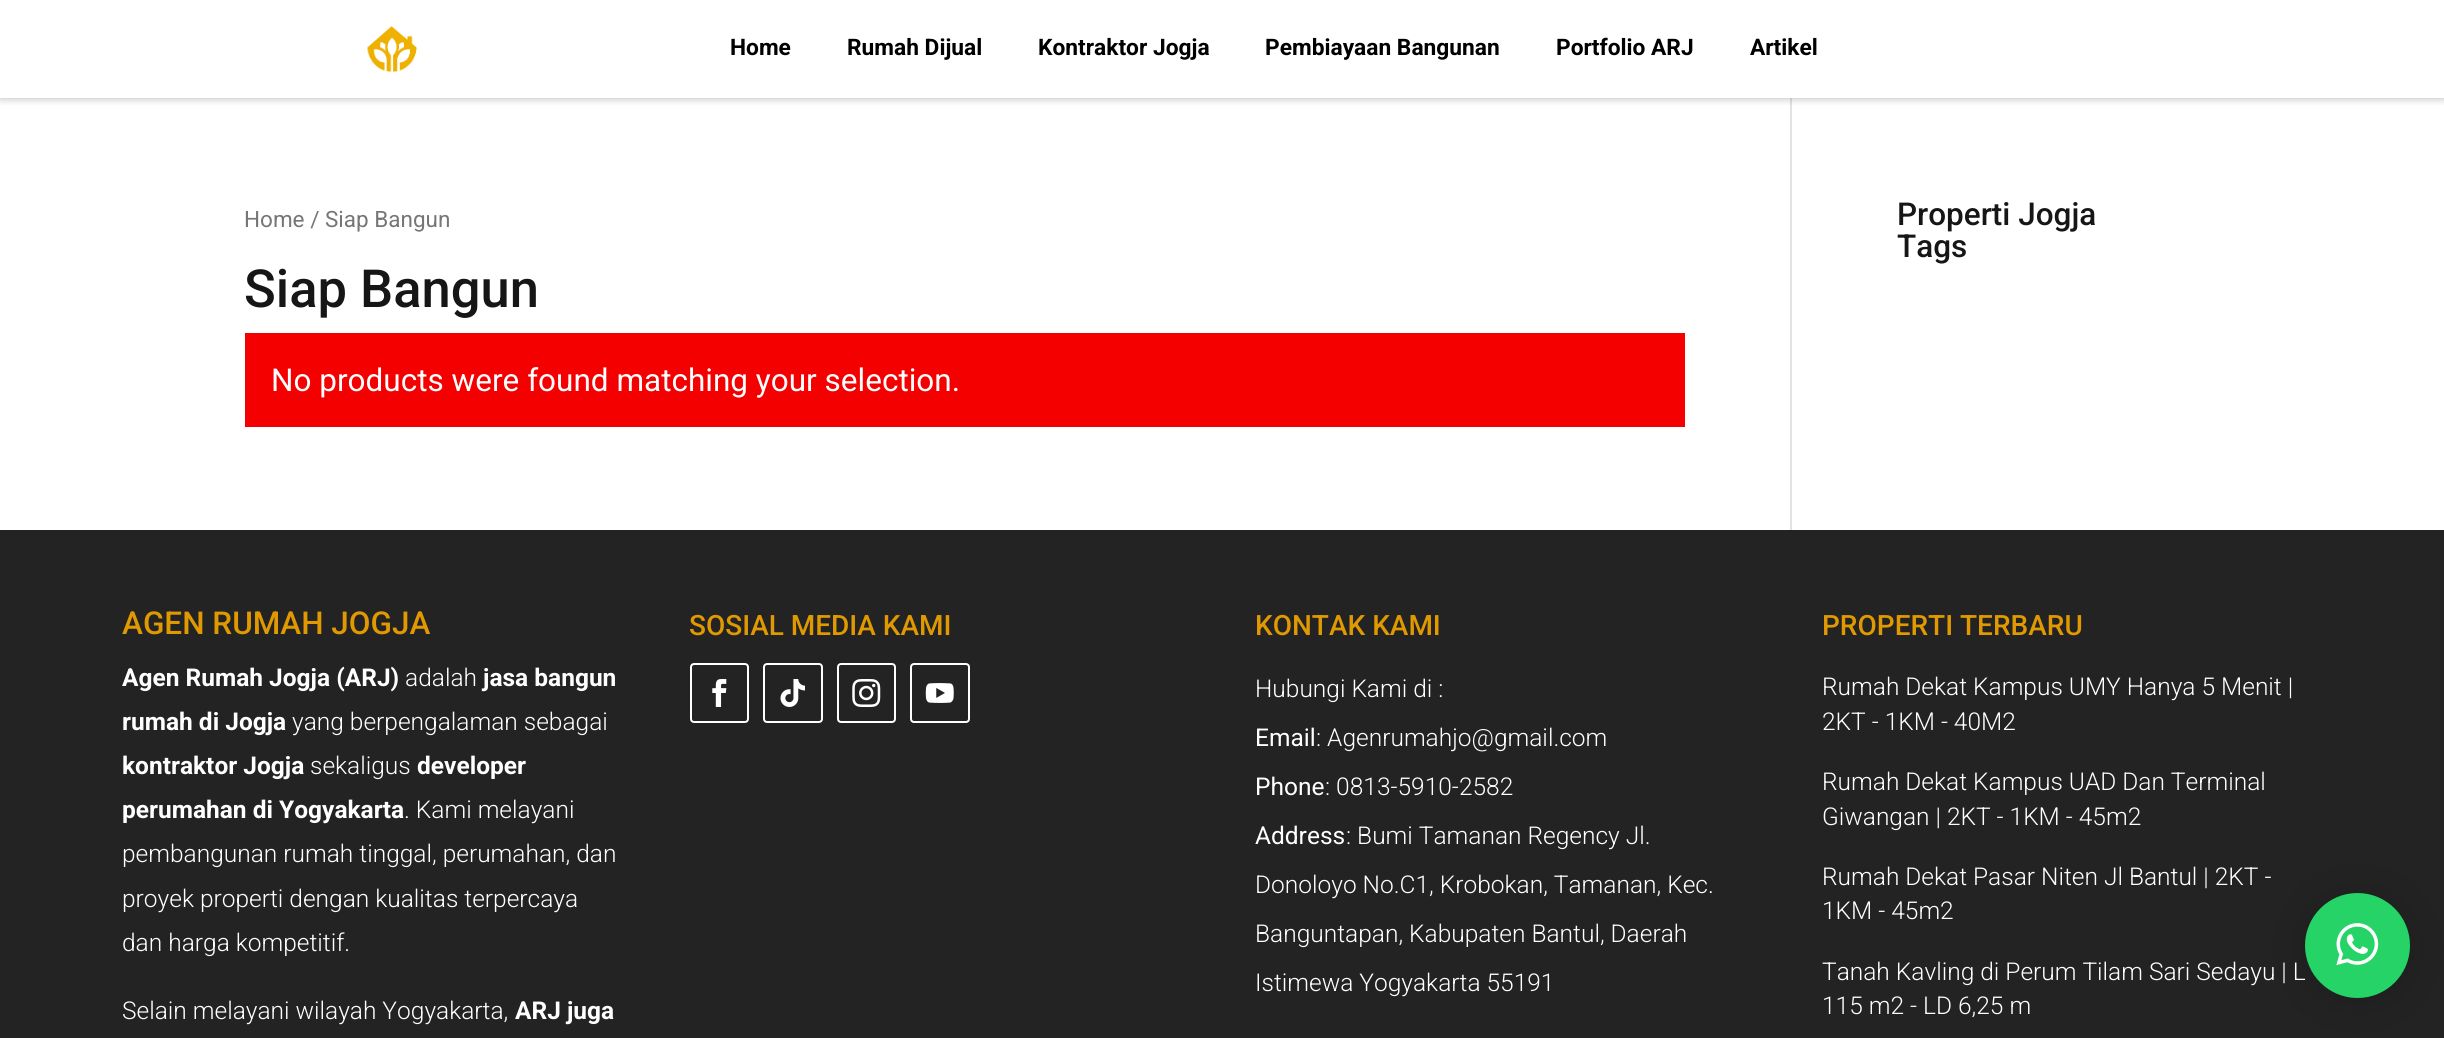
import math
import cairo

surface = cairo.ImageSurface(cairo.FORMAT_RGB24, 2444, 1038)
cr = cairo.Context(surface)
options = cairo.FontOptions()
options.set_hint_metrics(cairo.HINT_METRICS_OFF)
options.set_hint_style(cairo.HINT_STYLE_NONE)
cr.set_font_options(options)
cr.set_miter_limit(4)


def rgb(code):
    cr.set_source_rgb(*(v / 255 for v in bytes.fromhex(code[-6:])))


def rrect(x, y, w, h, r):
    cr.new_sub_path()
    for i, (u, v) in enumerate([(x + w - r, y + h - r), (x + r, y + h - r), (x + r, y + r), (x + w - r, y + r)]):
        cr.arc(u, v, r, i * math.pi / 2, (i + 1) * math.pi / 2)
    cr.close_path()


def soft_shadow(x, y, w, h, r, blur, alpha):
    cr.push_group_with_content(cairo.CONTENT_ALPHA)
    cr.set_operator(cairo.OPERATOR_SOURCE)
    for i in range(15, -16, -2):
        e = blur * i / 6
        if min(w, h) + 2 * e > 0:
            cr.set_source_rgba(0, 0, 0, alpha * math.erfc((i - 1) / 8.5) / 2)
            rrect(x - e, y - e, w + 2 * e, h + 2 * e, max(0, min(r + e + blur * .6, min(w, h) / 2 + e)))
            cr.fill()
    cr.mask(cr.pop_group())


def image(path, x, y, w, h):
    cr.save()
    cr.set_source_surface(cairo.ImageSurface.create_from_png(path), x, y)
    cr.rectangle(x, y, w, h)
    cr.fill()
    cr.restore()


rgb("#ffffff")
cr.paint()
rgb("#e2e2e2")
cr.rectangle(1790, 98, 2, 432)
cr.fill()
cr.save()
cr.rectangle(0, 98, 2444, 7)
cr.clip()
rgb("#000000")
soft_shadow(0, 0, 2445, 98, 0, 4.5, 0.3)
cr.restore()
image("img/1.png", 367, 26, 50, 46)
rgb("#f50000")
cr.rectangle(245, 333, 1440, 94)
cr.fill()
rgb("#232323")
cr.rectangle(0, 530, 2444, 508)
cr.fill()
rrect(691, 664, 57, 58, 3)
rgb("#ffffff")
cr.stroke()
image("img/2.png", 712, 679, 15, 28)
rrect(764, 664, 58, 58, 3)
cr.stroke()
image("img/3.png", 780, 679, 25, 28)
rrect(838, 664, 57, 58, 3)
cr.stroke()
image("img/4.png", 852, 679, 29, 28)
rrect(911, 664, 58, 58, 3)
cr.stroke()
image("img/5.png", 925, 683, 29, 20)
rgb("#000000")
soft_shadow(2305, 896, 105, 105, 52.5, 28, 0.16)
rgb("#25d366")
cr.arc(2357.5, 945.5, 52.5, 0, 2 * math.pi)
cr.fill()
image("img/6.png", 2336, 923, 43, 43)
cr.select_font_face("Roboto", cairo.FONT_SLANT_NORMAL, cairo.FONT_WEIGHT_BOLD)
cr.set_font_size(22.75)
rgb("#000000")
for x, y, s in [
    (730, 55, "Home"),
    (847, 55, "Rumah Dijual"),
    (1038, 55, "Kontraktor Jogja"),
    (1265, 55, "Pembiayaan Bangunan"),
    (1556, 55, "Portfolio ARJ"),
    (1750, 55, "Artikel"),
]:
    cr.move_to(x, y)
    cr.show_text(s)
cr.select_font_face("Roboto")
cr.set_font_size(22.5)
rgb("#767676")
cr.move_to(244, 227)
cr.show_text("Home / Siap Bangun")
cr.select_font_face("Roboto Medium")
cr.set_font_size(52.5)
rgb("#161616")
cr.move_to(244, 307)
cr.show_text("Siap Bangun")
cr.select_font_face("Roboto")
cr.set_font_size(31.5)
rgb("#ffffff")
cr.move_to(271, 391)
cr.show_text("No products were found matching your selection.")
cr.select_font_face("Roboto Medium")
rgb("#161616")
cr.move_to(1897, 225)
cr.show_text("Properti Jogja")
cr.move_to(1897, 257)
cr.show_text("Tags")
rgb("#e09900")
cr.move_to(122, 634)
cr.show_text("AGEN RUMAH JOGJA")
cr.select_font_face("Roboto", cairo.FONT_SLANT_NORMAL, cairo.FONT_WEIGHT_BOLD)
cr.set_font_size(24.5)
rgb("#ffffff")
cr.move_to(122, 686)
cr.show_text("Agen Rumah Jogja (ARJ)")
cr.select_font_face("Roboto Light")
cr.move_to(405, 686)
cr.show_text("adalah")
cr.select_font_face("Roboto", cairo.FONT_SLANT_NORMAL, cairo.FONT_WEIGHT_BOLD)
cr.move_to(483, 686)
cr.show_text("jasa bangun")
cr.move_to(122, 730)
cr.show_text("rumah di Jogja")
cr.select_font_face("Roboto Light")
cr.move_to(292, 730)
cr.show_text("yang berpengalaman sebagai")
cr.select_font_face("Roboto", cairo.FONT_SLANT_NORMAL, cairo.FONT_WEIGHT_BOLD)
cr.move_to(122, 774)
cr.show_text("kontraktor Jogja")
cr.select_font_face("Roboto Light")
cr.move_to(310, 774)
cr.show_text("sekaligus")
cr.select_font_face("Roboto", cairo.FONT_SLANT_NORMAL, cairo.FONT_WEIGHT_BOLD)
cr.move_to(417, 774)
cr.show_text("developer")
cr.move_to(122, 818)
cr.show_text("perumahan di Yogyakarta")
cr.select_font_face("Roboto Light")
for x, y, s in [
    (404, 818, ". Kami melayani"),
    (122, 862, "pembangunan rumah tinggal, perumahan, dan"),
    (122, 907, "proyek properti dengan kualitas terpercaya"),
    (122, 951, "dan harga kompetitif."),
    (122, 1019, "Selain melayani wilayah Yogyakarta,"),
]:
    cr.move_to(x, y)
    cr.show_text(s)
cr.select_font_face("Roboto", cairo.FONT_SLANT_NORMAL, cairo.FONT_WEIGHT_BOLD)
cr.move_to(515, 1019)
cr.show_text("ARJ juga")
cr.select_font_face("Roboto Medium")
cr.set_font_size(28)
rgb("#e09900")
cr.move_to(689, 635)
cr.show_text("SOSIAL MEDIA KAMI")
cr.move_to(1255, 635)
cr.show_text("KONTAK KAMI")
cr.select_font_face("Roboto Light")
cr.set_font_size(24.5)
rgb("#ffffff")
cr.move_to(1255, 697)
cr.show_text("Hubungi Kami di :")
cr.select_font_face("Roboto")
cr.move_to(1255, 746)
cr.show_text("Email")
cr.select_font_face("Roboto Light")
cr.move_to(1316, 746)
cr.show_text(": Agenrumahjo@gmail.com")
cr.select_font_face("Roboto")
cr.move_to(1255, 795)
cr.show_text("Phone")
cr.select_font_face("Roboto Light")
cr.move_to(1325, 795)
cr.show_text(": 0813-5910-2582")
cr.select_font_face("Roboto")
cr.move_to(1255, 844)
cr.show_text("Address")
cr.select_font_face("Roboto Light")
for x, y, s in [
    (1346, 844, ": Bumi Tamanan Regency Jl."),
    (1255, 893, "Donoloyo No.C1, Krobokan, Tamanan, Kec."),
    (1255, 942, "Banguntapan, Kabupaten Bantul, Daerah"),
    (1255, 991, "Istimewa Yogyakarta 55191"),
]:
    cr.move_to(x, y)
    cr.show_text(s)
cr.select_font_face("Roboto Medium")
cr.set_font_size(28)
rgb("#e09900")
cr.move_to(1822, 635)
cr.show_text("PROPERTI TERBARU")
cr.select_font_face("Roboto Light")
cr.set_font_size(24.5)
rgb("#ffffff")
for x, y, s in [
    (1822, 695, "Rumah Dekat Kampus UMY Hanya 5 Menit |"),
    (1822, 730, "2KT - 1KM - 40M2"),
    (1822, 790, "Rumah Dekat Kampus UAD Dan Terminal"),
    (1822, 825, "Giwangan | 2KT - 1KM - 45m2"),
    (1822, 885, "Rumah Dekat Pasar Niten Jl Bantul | 2KT -"),
    (1822, 919, "1KM - 45m2"),
    (1822, 980, "Tanah Kavling di Perum Tilam Sari Sedayu | L"),
    (1822, 1014, "115 m2 - LD 6,25 m"),
]:
    cr.move_to(x, y)
    cr.show_text(s)
surface.write_to_png("page.png")
